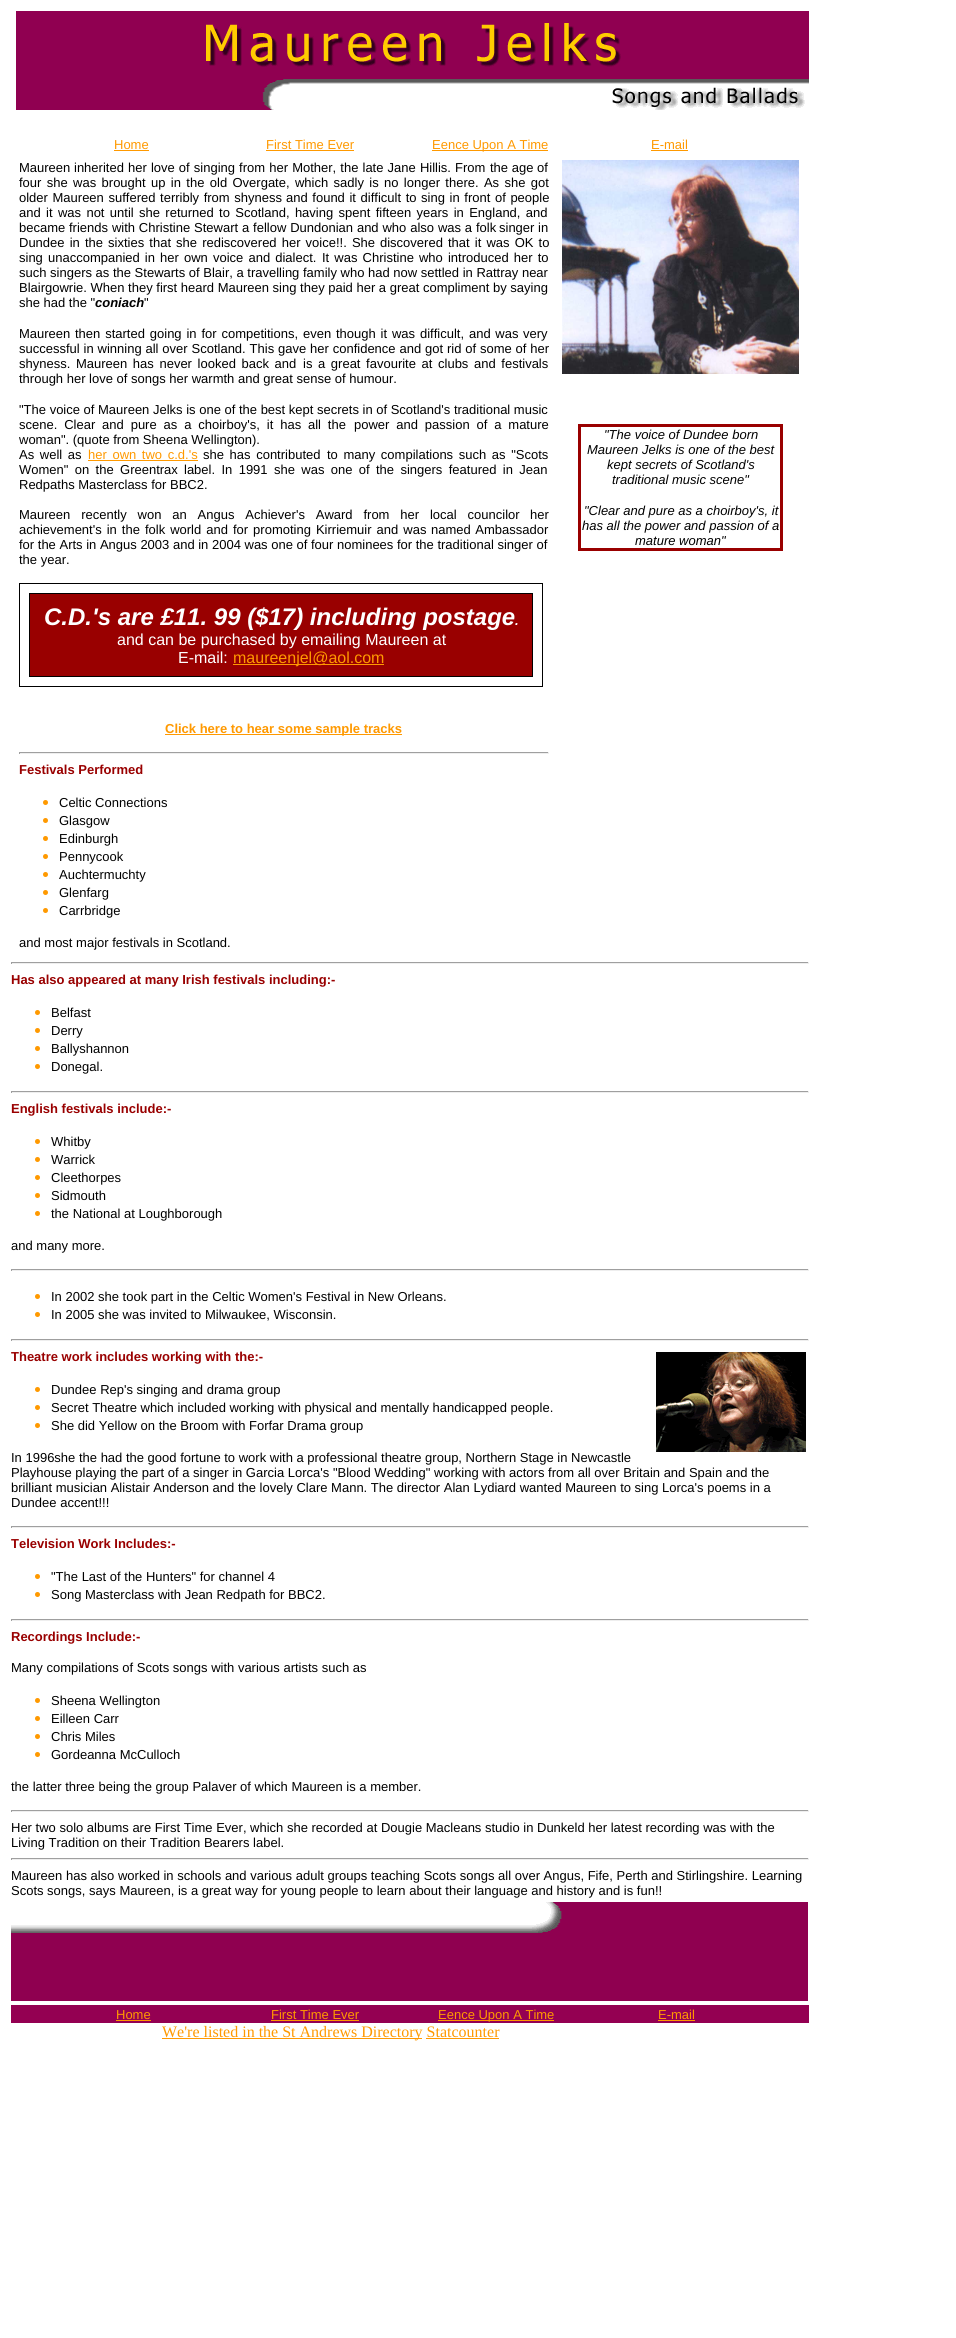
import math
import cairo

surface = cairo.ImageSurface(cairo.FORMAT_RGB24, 956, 2338)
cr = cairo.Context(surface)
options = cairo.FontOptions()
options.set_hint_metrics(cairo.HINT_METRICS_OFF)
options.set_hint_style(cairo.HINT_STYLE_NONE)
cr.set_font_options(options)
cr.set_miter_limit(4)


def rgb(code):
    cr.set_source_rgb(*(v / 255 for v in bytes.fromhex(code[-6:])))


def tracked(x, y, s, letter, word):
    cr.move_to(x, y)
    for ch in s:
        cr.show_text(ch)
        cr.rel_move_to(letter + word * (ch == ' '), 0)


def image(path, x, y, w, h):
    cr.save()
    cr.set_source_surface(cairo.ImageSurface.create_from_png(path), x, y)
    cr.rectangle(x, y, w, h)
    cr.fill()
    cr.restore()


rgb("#ffffff")
cr.paint()
image("img/1.png", 16, 11, 793, 99)
for x, y, w, h, color in [
    (114, 150, 35, 1, "#ff9900"),
    (266, 150, 88, 1, "#ff9900"),
    (432, 150, 116, 1, "#ff9900"),
    (651, 150, 37, 1, "#ff9900"),
    (88, 460, 110, 1, "#ff9900"),
]:
    rgb(color)
    cr.rectangle(x, y, w, h)
    cr.fill()
cr.rectangle(19.5, 583.5, 523, 103)
rgb("#000000")
cr.set_line_width(1)
cr.stroke()
rgb("#990000")
cr.rectangle(29.5, 593.5, 503, 83)
cr.fill_preserve()
rgb("#000000")
cr.stroke()
for x, y, w, h, color in [
    (233, 664, 151, 1, "#ff9900"),
    (165, 734, 237, 1, "#ff9900"),
    (19, 752, 530, 1, "#9f9f9f"),
    (548, 752, 1, 2, "#eeeeee"),
    (19, 753, 530, 1, "#eeeeee"),
    (19, 752, 1, 2, "#9f9f9f"),
]:
    rgb(color)
    cr.rectangle(x, y, w, h)
    cr.fill()
rgb("#ff9900")
cr.arc(45.5, 802.5, 2.5, 0, 2 * math.pi)
cr.fill()
cr.arc(45.5, 820.5, 2.5, 0, 2 * math.pi)
cr.fill()
cr.arc(45.5, 838.5, 2.5, 0, 2 * math.pi)
cr.fill()
cr.arc(45.5, 856.5, 2.5, 0, 2 * math.pi)
cr.fill()
cr.arc(45.5, 874.5, 2.5, 0, 2 * math.pi)
cr.fill()
cr.arc(45.5, 892.5, 2.5, 0, 2 * math.pi)
cr.fill()
cr.arc(45.5, 910.5, 2.5, 0, 2 * math.pi)
cr.fill()
image("img/2.png", 562, 160, 237, 214)
cr.rectangle(579, 425, 203, 125)
rgb("#990000")
cr.set_line_width(2)
cr.stroke()
cr.rectangle(580.5, 426.5, 200, 122)
cr.set_line_width(1)
cr.stroke()
for x, y, w, h, color in [
    (11, 962, 798, 1, "#9f9f9f"),
    (808, 962, 1, 2, "#eeeeee"),
    (11, 963, 798, 1, "#eeeeee"),
    (11, 962, 1, 2, "#9f9f9f"),
]:
    rgb(color)
    cr.rectangle(x, y, w, h)
    cr.fill()
rgb("#ff9900")
cr.arc(37.5, 1012.5, 2.5, 0, 2 * math.pi)
cr.fill()
cr.arc(37.5, 1030.5, 2.5, 0, 2 * math.pi)
cr.fill()
cr.arc(37.5, 1048.5, 2.5, 0, 2 * math.pi)
cr.fill()
cr.arc(37.5, 1066.5, 2.5, 0, 2 * math.pi)
cr.fill()
for x, y, w, h, color in [
    (11, 1091, 798, 1, "#9f9f9f"),
    (808, 1091, 1, 2, "#eeeeee"),
    (11, 1092, 798, 1, "#eeeeee"),
    (11, 1091, 1, 2, "#9f9f9f"),
]:
    rgb(color)
    cr.rectangle(x, y, w, h)
    cr.fill()
rgb("#ff9900")
cr.arc(37.5, 1141.5, 2.5, 0, 2 * math.pi)
cr.fill()
cr.arc(37.5, 1159.5, 2.5, 0, 2 * math.pi)
cr.fill()
cr.arc(37.5, 1177.5, 2.5, 0, 2 * math.pi)
cr.fill()
cr.arc(37.5, 1195.5, 2.5, 0, 2 * math.pi)
cr.fill()
cr.arc(37.5, 1213.5, 2.5, 0, 2 * math.pi)
cr.fill()
for x, y, w, h, color in [
    (11, 1269, 798, 1, "#9f9f9f"),
    (808, 1269, 1, 2, "#eeeeee"),
    (11, 1270, 798, 1, "#eeeeee"),
    (11, 1269, 1, 2, "#9f9f9f"),
]:
    rgb(color)
    cr.rectangle(x, y, w, h)
    cr.fill()
rgb("#ff9900")
cr.arc(37.5, 1296.5, 2.5, 0, 2 * math.pi)
cr.fill()
cr.arc(37.5, 1314.5, 2.5, 0, 2 * math.pi)
cr.fill()
for x, y, w, h, color in [
    (11, 1339, 798, 1, "#9f9f9f"),
    (808, 1339, 1, 2, "#eeeeee"),
    (11, 1340, 798, 1, "#eeeeee"),
    (11, 1339, 1, 2, "#9f9f9f"),
]:
    rgb(color)
    cr.rectangle(x, y, w, h)
    cr.fill()
image("img/3.png", 656, 1352, 150, 100)
rgb("#ff9900")
cr.arc(37.5, 1389.5, 2.5, 0, 2 * math.pi)
cr.fill()
cr.arc(37.5, 1407.5, 2.5, 0, 2 * math.pi)
cr.fill()
cr.arc(37.5, 1425.5, 2.5, 0, 2 * math.pi)
cr.fill()
for x, y, w, h, color in [
    (11, 1526, 798, 1, "#9f9f9f"),
    (808, 1526, 1, 2, "#eeeeee"),
    (11, 1527, 798, 1, "#eeeeee"),
    (11, 1526, 1, 2, "#9f9f9f"),
]:
    rgb(color)
    cr.rectangle(x, y, w, h)
    cr.fill()
rgb("#ff9900")
cr.arc(37.5, 1576.5, 2.5, 0, 2 * math.pi)
cr.fill()
cr.arc(37.5, 1594.5, 2.5, 0, 2 * math.pi)
cr.fill()
for x, y, w, h, color in [
    (11, 1619, 798, 1, "#9f9f9f"),
    (808, 1619, 1, 2, "#eeeeee"),
    (11, 1620, 798, 1, "#eeeeee"),
    (11, 1619, 1, 2, "#9f9f9f"),
]:
    rgb(color)
    cr.rectangle(x, y, w, h)
    cr.fill()
rgb("#ff9900")
cr.arc(37.5, 1700.5, 2.5, 0, 2 * math.pi)
cr.fill()
cr.arc(37.5, 1718.5, 2.5, 0, 2 * math.pi)
cr.fill()
cr.arc(37.5, 1736.5, 2.5, 0, 2 * math.pi)
cr.fill()
cr.arc(37.5, 1754.5, 2.5, 0, 2 * math.pi)
cr.fill()
for x, y, w, h, color in [
    (11, 1810, 798, 1, "#9f9f9f"),
    (808, 1810, 1, 2, "#eeeeee"),
    (11, 1811, 798, 1, "#eeeeee"),
    (11, 1810, 1, 2, "#9f9f9f"),
    (11, 1858, 798, 1, "#9f9f9f"),
    (808, 1858, 1, 2, "#eeeeee"),
    (11, 1859, 798, 1, "#eeeeee"),
    (11, 1858, 1, 2, "#9f9f9f"),
]:
    rgb(color)
    cr.rectangle(x, y, w, h)
    cr.fill()
image("img/4.png", 11, 1902, 797, 99)
for x, y, w, h, color in [
    (11, 2005, 798, 18, "#940052"),
    (116, 2020, 35, 1, "#ff9900"),
    (271, 2020, 88, 1, "#ff9900"),
    (438, 2020, 116, 1, "#ff9900"),
    (658, 2020, 37, 1, "#ff9900"),
    (162, 2038, 260, 1, "#ff9900"),
    (426, 2038, 73, 1, "#ff9900"),
]:
    rgb(color)
    cr.rectangle(x, y, w, h)
    cr.fill()
cr.select_font_face("Liberation Sans")
cr.set_font_size(13)
for x, y, s in [
    (114, 149, "Home"),
    (266, 149, "First Time Ever"),
    (432, 149, "Eence Upon A Time"),
    (651, 149, "E-mail"),
]:
    cr.move_to(x, y)
    cr.show_text(s)
rgb("#000000")
cr.move_to(19, 172)
cr.show_text("Maureen")
tracked(74, 172, "inherited her love of singing from her Mother, the late Jane Hillis. From", 0, 0.5)
cr.move_to(490, 172)
cr.show_text("the age of")
tracked(19, 187, "four she was brought up in the old Overgate, which sadly is", 0, 1.75)
tracked(384, 187, "no longer there. As she got", 0, 1.75)
tracked(19, 202, "older Maureen suffered terribly from shyness", 0, 1)
tracked(286, 202, "and found it difficult to sing in front of people", 0, 1)
tracked(19, 217, "and it was not until", 0, 1.75)
tracked(139, 217, "she returned to Scotland, having spent fifteen years in England, and", 0, 1.75)
cr.move_to(19, 232)
cr.show_text("became")
tracked(69, 232, "friends with Christine Stewart a fellow Dundonian and who also was a folk", 0, 0.25)
cr.move_to(499, 232)
cr.show_text("singer in")
for x, y, s in [
    (19, 247, "Dundee in the sixties that she rediscovered her voice!!. She"),
    (380, 247, "discovered that it was OK to"),
    (19, 262, "sing unaccompanied in her own voice and dialect."),
    (322, 262, "It was Christine who introduced her to"),
]:
    tracked(x, y, s, 0, 1.5)
for x, y, s in [
    (19, 277, "such singers as the Stewarts of Blair, a travelling family who had now settled in Rattray near"),
    (19, 292, "Blairgowrie. When they first heard Maureen sing they paid her a great compliment by saying"),
    (19, 307, "she had the \""),
]:
    cr.move_to(x, y)
    cr.show_text(s)
cr.select_font_face("Liberation Sans", cairo.FONT_SLANT_ITALIC, cairo.FONT_WEIGHT_BOLD)
cr.move_to(95, 307)
cr.show_text("coniach")
cr.select_font_face("Liberation Sans")
cr.move_to(144, 307)
cr.show_text("\"")
cr.move_to(19, 338)
cr.show_text("Maureen")
tracked(75, 338, "then started going in for competitions, even though it was difficult,", 0, 1.25)
tracked(469, 338, "and was very", 0, 1)
tracked(19, 353, "successful in winning all over Scotland. This gave her confidence and got rid of some of her", 0, 0.25)
tracked(19, 368, "shyness. Maureen has never looked back and", 0, 2)
tracked(303, 368, "is a great favourite at clubs and festivals", 0, 2)
cr.move_to(19, 383)
cr.show_text("through her love of songs her warmth and great sense of humour.")
cr.move_to(19, 414)
cr.show_text("\"The voice of Maureen Jelks is one of the best kept secrets in of Scotland's traditional music")
tracked(19, 429, "scene. Clear and pure as a choirboy's, it has all the", 0, 3.25)
tracked(354, 429, "power and passion of a mature", 0, 3.25)
cr.move_to(19, 444)
cr.show_text("woman\". (quote from Sheena Wellington).")
tracked(19, 459, "As well as", 0, 2)
rgb("#ff9900")
tracked(88, 459, "her own two c.d.'s", 0, 2)
rgb("#000000")
tracked(203, 459, "she has contributed", 0, 2)
tracked(327, 459, "to many compilations such as \"Scots", 0, 2)
tracked(19, 474, "Women\" on the Greentrax", 0, 2.75)
tracked(184, 474, "label. In 1991 she was one of the singers featured in Jean", 0, 2.75)
cr.move_to(19, 489)
cr.show_text("Redpaths Masterclass for BBC2.")
tracked(19, 519, "Maureen recently won an Angus Achiever's Award from her local councilor", 0, 7.25)
cr.move_to(530, 519)
cr.show_text("her")
tracked(19, 534, "achievement's in the folk world and for promoting Kirriemuir and was", 0, 1.4)
tracked(431, 534, "named Ambassador", 0, 1)
cr.move_to(19, 549)
cr.show_text("for the Arts in Angus 2003 and in 2004 was one of four nominees for the traditional singer of")
cr.move_to(19, 564)
cr.show_text("the year.")
cr.select_font_face("Liberation Sans", cairo.FONT_SLANT_ITALIC, cairo.FONT_WEIGHT_BOLD)
cr.set_font_size(24)
rgb("#ffffff")
cr.move_to(44, 625)
cr.show_text("C.D.'s are £11. 99 ($17) including postage")
cr.set_font_size(13)
cr.move_to(515, 625)
cr.show_text(".")
cr.select_font_face("Liberation Sans")
cr.set_font_size(16)
cr.move_to(117, 645)
cr.show_text("and can be purchased by emailing Maureen at")
cr.move_to(178, 663)
cr.show_text("E-mail:")
rgb("#ff9900")
cr.move_to(233, 663)
cr.show_text("maureenjel@aol.com")
cr.select_font_face("Liberation Sans", cairo.FONT_SLANT_NORMAL, cairo.FONT_WEIGHT_BOLD)
cr.set_font_size(13)
cr.move_to(165, 733)
cr.show_text("Click here to hear some sample tracks")
rgb("#990000")
cr.move_to(19, 774)
cr.show_text("Festivals Performed")
cr.select_font_face("Liberation Sans")
rgb("#000000")
for x, y, s in [
    (59, 807, "Celtic Connections"),
    (59, 825, "Glasgow"),
    (59, 843, "Edinburgh"),
    (59, 861, "Pennycook"),
    (59, 879, "Auchtermuchty"),
    (59, 897, "Glenfarg"),
    (59, 915, "Carrbridge"),
    (19, 947, "and most major festivals in Scotland."),
]:
    cr.move_to(x, y)
    cr.show_text(s)
cr.select_font_face("Liberation Sans", cairo.FONT_SLANT_ITALIC)
for x, y, s in [
    (604, 439, "\"The voice of Dundee born"),
    (587, 454, "Maureen Jelks is one of the best"),
    (607, 469, "kept secrets of Scotland's"),
    (612, 484, "traditional music scene\""),
    (584, 515, "\"Clear and pure as a choirboy's, it"),
    (582, 530, "has all the power and passion of a"),
    (635, 545, "mature woman\""),
]:
    cr.move_to(x, y)
    cr.show_text(s)
cr.select_font_face("Liberation Sans", cairo.FONT_SLANT_NORMAL, cairo.FONT_WEIGHT_BOLD)
rgb("#990000")
cr.move_to(11, 984)
cr.show_text("Has also appeared at many Irish festivals including:-")
cr.select_font_face("Liberation Sans")
rgb("#000000")
for x, y, s in [
    (51, 1017, "Belfast"),
    (51, 1035, "Derry"),
    (51, 1053, "Ballyshannon"),
    (51, 1071, "Donegal."),
]:
    cr.move_to(x, y)
    cr.show_text(s)
cr.select_font_face("Liberation Sans", cairo.FONT_SLANT_NORMAL, cairo.FONT_WEIGHT_BOLD)
rgb("#990000")
cr.move_to(11, 1113)
cr.show_text("English festivals include:-")
cr.select_font_face("Liberation Sans")
rgb("#000000")
for x, y, s in [
    (51, 1146, "Whitby"),
    (51, 1164, "Warrick"),
    (51, 1182, "Cleethorpes"),
    (51, 1200, "Sidmouth"),
    (51, 1218, "the National at Loughborough"),
    (11, 1250, "and many more."),
    (51, 1301, "In 2002 she took part in the Celtic Women's Festival in New Orleans."),
    (51, 1319, "In 2005 she was invited to Milwaukee, Wisconsin."),
]:
    cr.move_to(x, y)
    cr.show_text(s)
cr.select_font_face("Liberation Sans", cairo.FONT_SLANT_NORMAL, cairo.FONT_WEIGHT_BOLD)
rgb("#990000")
cr.move_to(11, 1361)
cr.show_text("Theatre work includes working with the:-")
cr.select_font_face("Liberation Sans")
rgb("#000000")
for x, y, s in [
    (51, 1394, "Dundee Rep's singing and drama group"),
    (51, 1412, "Secret Theatre which included working with physical and mentally handicapped people."),
    (51, 1430, "She did Yellow on the Broom with Forfar Drama group"),
    (11, 1462, "In 1996she the had the good fortune to work with a professional theatre group, Northern Stage in Newcastle"),
    (11, 1477, "Playhouse playing the part of a singer in Garcia Lorca's \"Blood Wedding\" working with actors from all over Britain and Spain and the"),
    (11, 1492, "brilliant musician Alistair Anderson and the lovely Clare Mann. The director Alan Lydiard wanted Maureen to sing Lorca's poems in a"),
    (11, 1507, "Dundee accent!!!"),
]:
    cr.move_to(x, y)
    cr.show_text(s)
cr.select_font_face("Liberation Sans", cairo.FONT_SLANT_NORMAL, cairo.FONT_WEIGHT_BOLD)
rgb("#990000")
cr.move_to(11, 1548)
cr.show_text("Television Work Includes:-")
cr.select_font_face("Liberation Sans")
rgb("#000000")
cr.move_to(51, 1581)
cr.show_text("\"The Last of the Hunters\" for channel 4")
cr.move_to(51, 1599)
cr.show_text("Song Masterclass with Jean Redpath for BBC2.")
cr.select_font_face("Liberation Sans", cairo.FONT_SLANT_NORMAL, cairo.FONT_WEIGHT_BOLD)
rgb("#990000")
cr.move_to(11, 1641)
cr.show_text("Recordings Include:-")
cr.select_font_face("Liberation Sans")
rgb("#000000")
for x, y, s in [
    (11, 1672, "Many compilations of Scots songs with various artists such as"),
    (51, 1705, "Sheena Wellington"),
    (51, 1723, "Eilleen Carr"),
    (51, 1741, "Chris Miles"),
    (51, 1759, "Gordeanna McCulloch"),
    (11, 1791, "the latter three being the group Palaver of which Maureen is a member."),
    (11, 1832, "Her two solo albums are First Time Ever, which she recorded at Dougie Macleans studio in Dunkeld her latest recording was with the"),
    (11, 1847, "Living Tradition on their Tradition Bearers label."),
    (11, 1880, "Maureen has also worked in schools and various adult groups teaching Scots songs all over Angus, Fife, Perth and Stirlingshire. Learning"),
    (11, 1895, "Scots songs, says Maureen, is a great way for young people to learn about their language and history and is fun!!"),
]:
    cr.move_to(x, y)
    cr.show_text(s)
rgb("#ff9900")
for x, y, s in [
    (116, 2019, "Home"),
    (271, 2019, "First Time Ever"),
    (438, 2019, "Eence Upon A Time"),
    (658, 2019, "E-mail"),
]:
    cr.move_to(x, y)
    cr.show_text(s)
cr.select_font_face("Liberation Serif")
cr.set_font_size(16)
cr.move_to(162, 2037)
cr.show_text("We're listed in the St Andrews Directory Statcounter")
surface.write_to_png("page.png")
